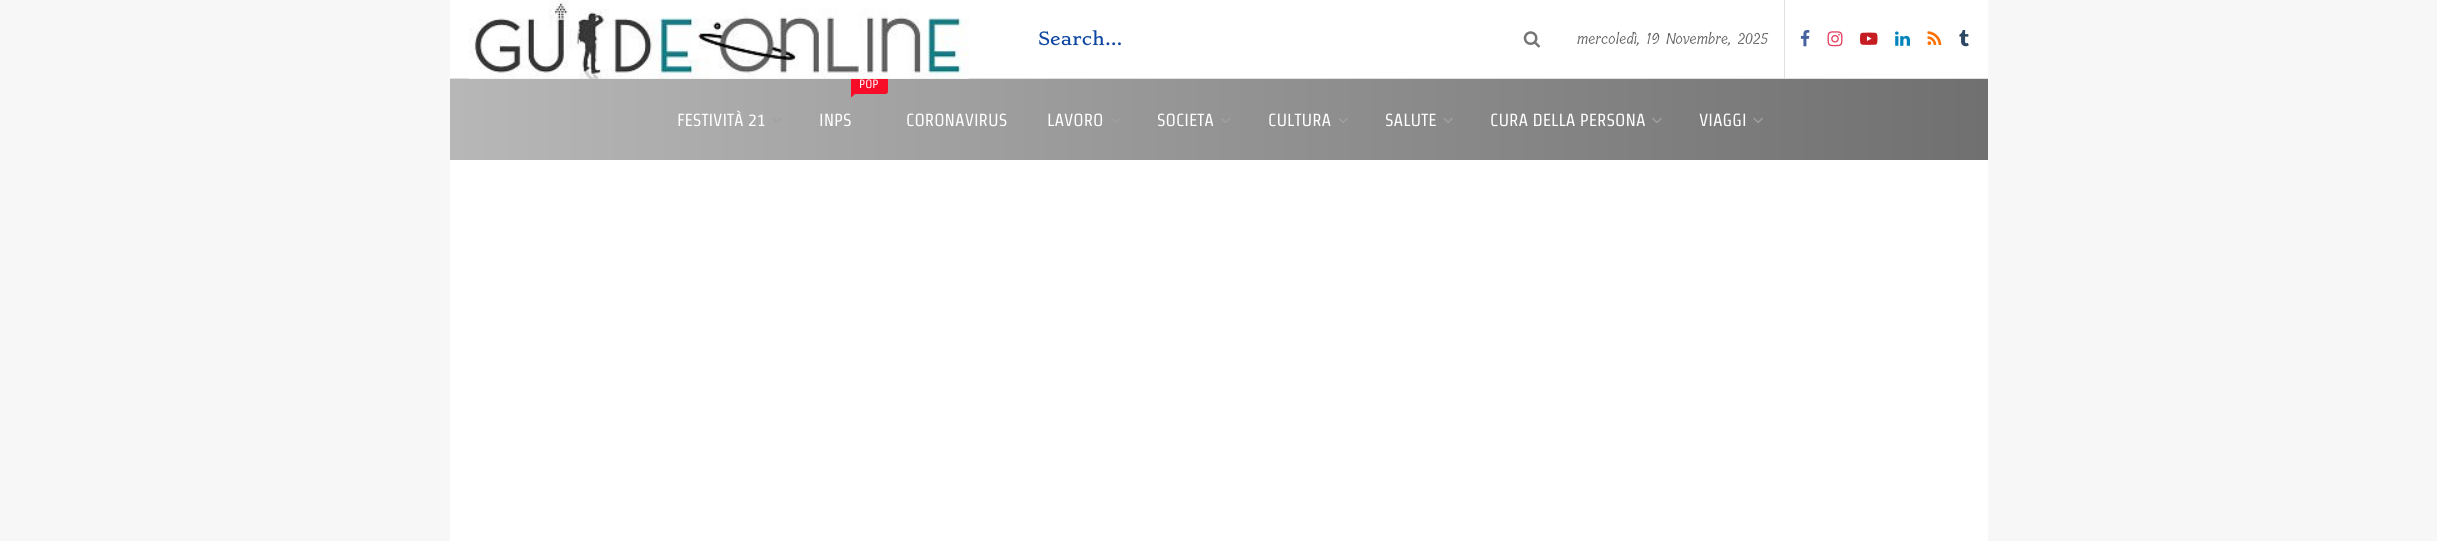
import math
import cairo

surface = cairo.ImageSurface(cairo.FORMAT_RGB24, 2437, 541)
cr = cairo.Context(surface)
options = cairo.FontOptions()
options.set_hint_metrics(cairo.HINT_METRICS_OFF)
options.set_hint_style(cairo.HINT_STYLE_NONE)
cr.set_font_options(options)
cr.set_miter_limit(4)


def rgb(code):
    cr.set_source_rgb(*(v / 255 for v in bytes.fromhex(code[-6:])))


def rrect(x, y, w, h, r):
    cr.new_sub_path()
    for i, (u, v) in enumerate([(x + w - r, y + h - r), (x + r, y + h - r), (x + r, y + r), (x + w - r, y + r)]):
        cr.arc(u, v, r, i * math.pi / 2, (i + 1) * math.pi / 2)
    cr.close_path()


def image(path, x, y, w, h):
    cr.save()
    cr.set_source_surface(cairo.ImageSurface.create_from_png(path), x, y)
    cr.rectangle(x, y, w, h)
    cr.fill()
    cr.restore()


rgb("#f7f7f7")
cr.paint()
gradient = cairo.LinearGradient(450, 119, 1988, 119)
gradient.add_color_stop_rgba(0, 0.718, 0.718, 0.718, 1)
gradient.add_color_stop_rgba(1, 0.439, 0.439, 0.439, 1)
cr.set_source(gradient)
cr.rectangle(450, 79, 1538, 81)
cr.fill()
rgb("#f70d28")
rrect(851, 76, 37, 18, 2.5)
cr.fill()
rgb("#ffffff")
cr.rectangle(450, 0, 1538, 78)
cr.fill()
rgb("#e0e0e0")
cr.rectangle(450, 78, 1538, 1)
cr.fill()
image("img/1.png", 468, 0, 501, 79)
image("img/2.png", 1523, 31, 17, 17)
cr.rectangle(1784, 0, 1, 78)
cr.fill()
image("img/3.png", 1800, 30, 10, 17)
image("img/4.png", 1827, 31, 16, 16)
image("img/5.png", 1860, 32, 18, 13)
image("img/6.png", 1895, 31, 15, 15)
image("img/7.png", 1927, 31, 15, 14)
image("img/8.png", 1959, 30, 10, 17)
image("img/9.png", 772, 118, 10, 5)
rgb("#f70d28")
cr.new_path()
cr.move_to(851, 97.5)
cr.line_to(851, 90)
cr.line_to(855, 94)
cr.close_path()
cr.fill()
image("img/10.png", 1111, 118, 9, 5)
image("img/11.png", 1221, 118, 10, 5)
image("img/12.png", 1338, 118, 10, 5)
image("img/13.png", 1443, 118, 10, 5)
image("img/14.png", 1652, 117, 10, 6)
image("img/15.png", 1753, 117, 10, 7)
rgb("#ffffff")
cr.rectangle(450, 160, 1538, 381)
cr.fill()
cr.select_font_face("Stoke")
cr.set_font_size(17.5)
rgb("#0d47a1")
cr.move_to(1038, 45)
cr.show_text("Search...")
cr.select_font_face("Tillana")
cr.set_font_size(15)
rgb("#616161")
cr.move_to(1577, 44)
cr.show_text("mercoledì, 19 Novembre, 2025")
cr.select_font_face("Strait")
cr.set_font_size(17.5)
rgb("#ffffff")
cr.move_to(677, 126)
cr.show_text("FESTIVITÀ 21")
cr.set_font_size(12)
cr.move_to(859, 88)
cr.show_text("POP")
cr.set_font_size(17.5)
for x, y, s in [
    (819, 126, "INPS"),
    (906, 126, "CORONAVIRUS"),
    (1047, 126, "LAVORO"),
    (1157, 126, "SOCIETA"),
    (1268, 126, "CULTURA"),
    (1385, 126, "SALUTE"),
    (1490, 126, "CURA DELLA PERSONA"),
    (1699, 126, "VIAGGI"),
]:
    cr.move_to(x, y)
    cr.show_text(s)
surface.write_to_png("page.png")
